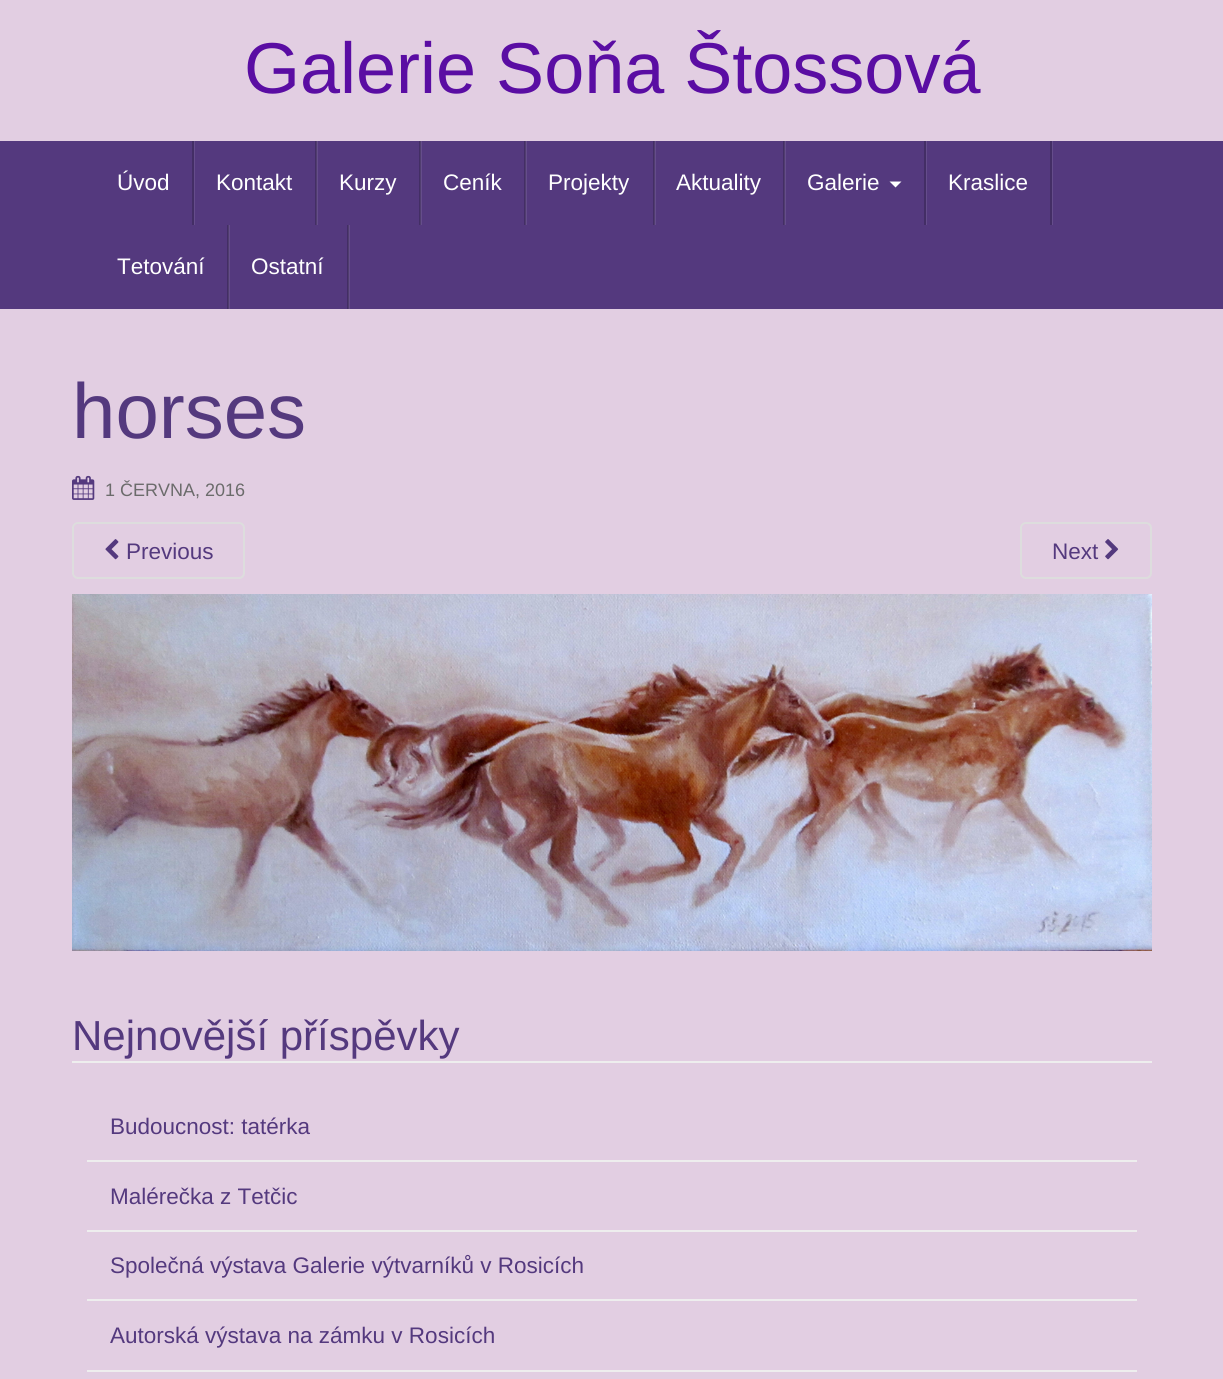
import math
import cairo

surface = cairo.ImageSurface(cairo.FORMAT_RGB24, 1223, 1379)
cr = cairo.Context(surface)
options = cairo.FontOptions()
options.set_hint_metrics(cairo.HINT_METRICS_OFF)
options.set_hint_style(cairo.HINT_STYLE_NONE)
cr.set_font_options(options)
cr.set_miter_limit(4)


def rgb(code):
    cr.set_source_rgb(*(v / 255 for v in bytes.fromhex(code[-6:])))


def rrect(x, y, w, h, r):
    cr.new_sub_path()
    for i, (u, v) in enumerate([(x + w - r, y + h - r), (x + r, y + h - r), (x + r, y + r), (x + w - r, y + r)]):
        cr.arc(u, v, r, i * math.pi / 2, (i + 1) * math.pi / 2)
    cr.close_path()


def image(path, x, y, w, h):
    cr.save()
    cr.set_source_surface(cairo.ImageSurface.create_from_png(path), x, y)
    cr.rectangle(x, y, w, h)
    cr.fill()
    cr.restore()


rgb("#e2cee2")
cr.paint()
for x, y, w, h, color in [
    (0, 141, 1223, 168, "#54397e"),
    (347, 225, 1, 84, "#432e65"),
    (227, 225, 1, 84, "#432e65"),
    (783, 141, 1, 84, "#432e65"),
    (653, 141, 1, 84, "#432e65"),
    (524, 141, 1, 84, "#432e65"),
    (419, 141, 1, 84, "#432e65"),
    (315, 141, 1, 84, "#432e65"),
    (194, 141, 1, 84, "#654d8b"),
    (192, 141, 2, 84, "#432e65"),
    (317, 141, 1, 84, "#654d8b"),
    (316, 141, 1, 84, "#513e6f"),
    (421, 141, 1, 84, "#654d8b"),
    (420, 141, 1, 84, "#513e6f"),
    (526, 141, 1, 84, "#654d8b"),
    (525, 141, 1, 84, "#513e6f"),
    (655, 141, 1, 84, "#654d8b"),
    (654, 141, 1, 84, "#513e6f"),
    (785, 141, 1, 84, "#654d8b"),
    (784, 141, 1, 84, "#513e6f"),
    (926, 141, 1, 84, "#654d8b"),
    (924, 141, 2, 84, "#432e65"),
]:
    rgb(color)
    cr.rectangle(x, y, w, h)
    cr.fill()
rgb("#ffffff")
cr.new_path()
cr.move_to(889.5, 181.5)
cr.line_to(901.5, 181.5)
cr.line_to(895.5, 187.5)
cr.close_path()
cr.fill()
for x, y, w, h, color in [
    (1052, 141, 1, 84, "#654d8b"),
    (1050, 141, 2, 84, "#432e65"),
    (229, 225, 1, 84, "#654d8b"),
    (228, 225, 1, 84, "#513e6f"),
    (349, 225, 1, 84, "#654d8b"),
    (348, 225, 1, 84, "#513e6f"),
]:
    rgb(color)
    cr.rectangle(x, y, w, h)
    cr.fill()
image("img/1.png", 72, 475, 23, 25)
rrect(73, 523, 171, 55, 5)
rgb("#dddddd")
cr.stroke()
image("img/2.png", 105, 539, 14, 21)
rrect(1021, 523, 130, 55, 5)
cr.stroke()
image("img/3.png", 1105, 539, 14, 21)
image("img/4.png", 72, 594, 1080, 357)
for x, y, w, h, color in [
    (72, 1061, 1080, 2, "#eeeeee"),
    (87, 1160, 1050, 2, "#eeeeee"),
    (87, 1230, 1050, 2, "#eeeeee"),
    (87, 1299, 1050, 2, "#eeeeee"),
    (87, 1370, 1050, 2, "#eeeeee"),
]:
    rgb(color)
    cr.rectangle(x, y, w, h)
    cr.fill()
cr.select_font_face("Liberation Sans")
cr.set_font_size(72)
rgb("#5a0da3")
cr.move_to(244, 93)
cr.show_text("Galerie Soňa Štossová")
cr.set_font_size(22.5)
rgb("#ffffff")
for x, y, s in [
    (117, 190, "Úvod"),
    (216, 190, "Kontakt"),
    (339, 190, "Kurzy"),
    (443, 190, "Ceník"),
    (548, 190, "Projekty"),
    (676, 190, "Aktuality"),
    (807, 190, "Galerie"),
    (948, 190, "Kraslice"),
    (117, 274, "Tetování"),
    (251, 274, "Ostatní"),
]:
    cr.move_to(x, y)
    cr.show_text(s)
cr.set_font_size(78)
rgb("#54397e")
cr.move_to(72, 438)
cr.show_text("horses")
cr.set_font_size(18)
rgb("#6b6b6b")
cr.move_to(105, 496)
cr.show_text("1 ČERVNA, 2016")
cr.set_font_size(22.5)
rgb("#54397e")
cr.move_to(126, 559)
cr.show_text("Previous")
cr.move_to(1052, 559)
cr.show_text("Next")
cr.set_font_size(42)
cr.move_to(72, 1050)
cr.show_text("Nejnovější příspěvky")
cr.set_font_size(22.5)
for x, y, s in [
    (110, 1134, "Budoucnost: tatérka"),
    (110, 1204, "Malérečka z Tetčic"),
    (110, 1273, "Společná výstava Galerie výtvarníků v Rosicích"),
    (110, 1343, "Autorská výstava na zámku v Rosicích"),
]:
    cr.move_to(x, y)
    cr.show_text(s)
surface.write_to_png("page.png")
